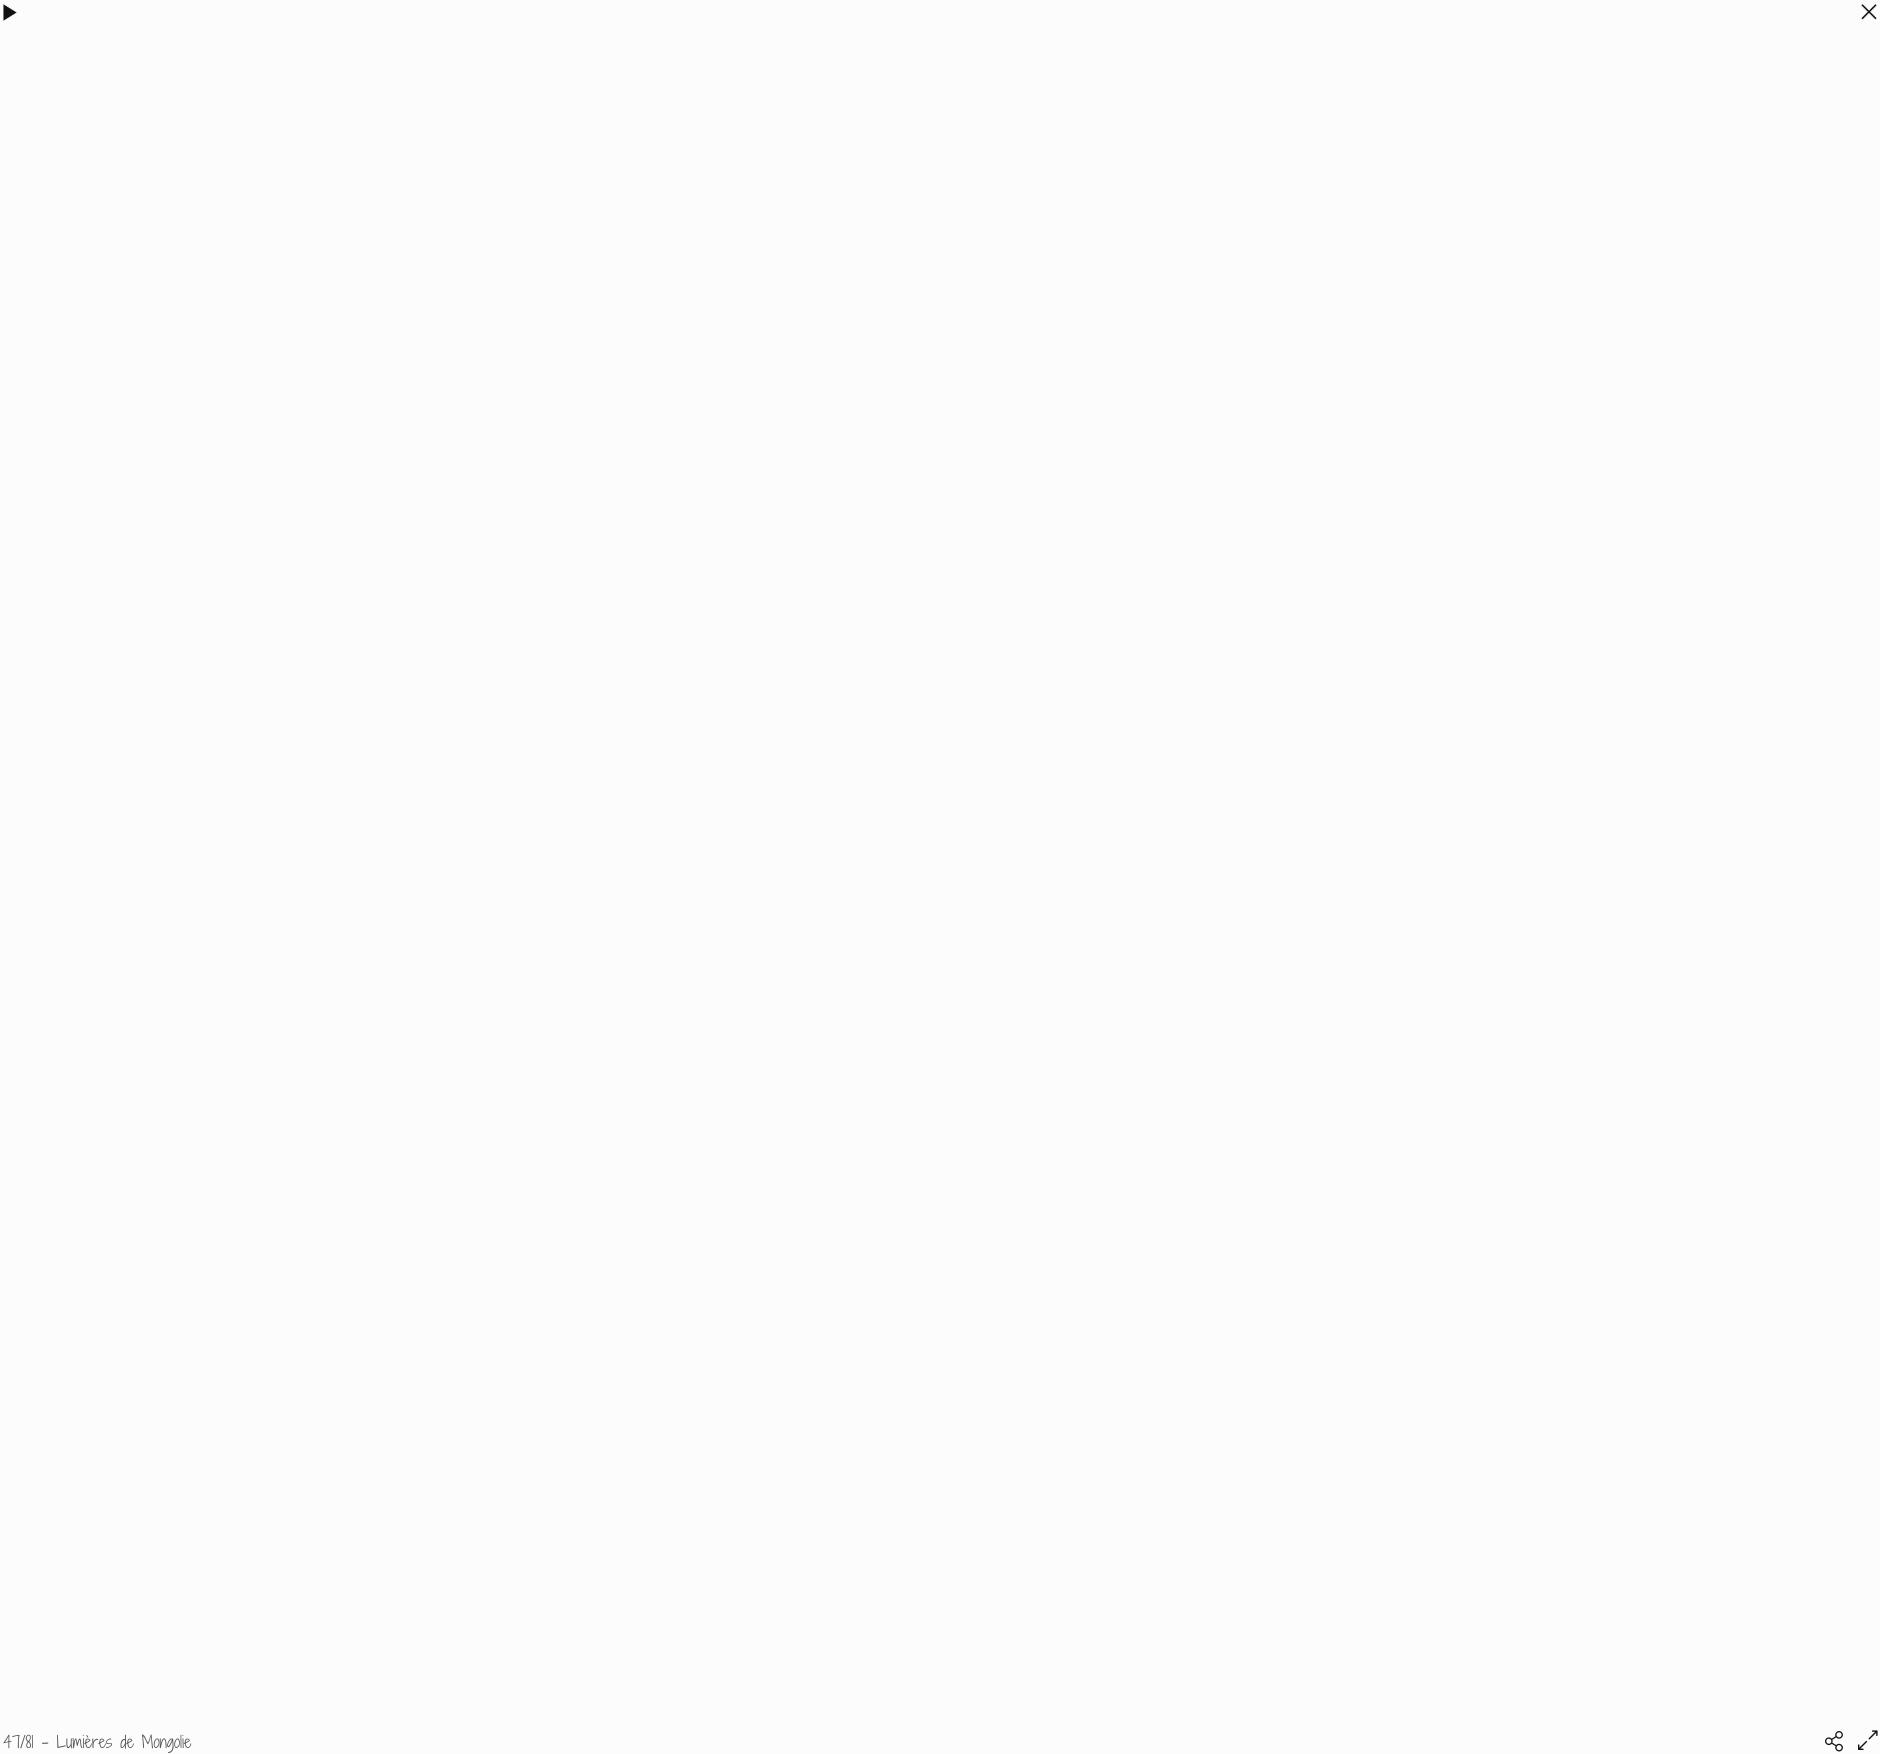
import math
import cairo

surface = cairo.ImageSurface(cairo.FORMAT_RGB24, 1880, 1754)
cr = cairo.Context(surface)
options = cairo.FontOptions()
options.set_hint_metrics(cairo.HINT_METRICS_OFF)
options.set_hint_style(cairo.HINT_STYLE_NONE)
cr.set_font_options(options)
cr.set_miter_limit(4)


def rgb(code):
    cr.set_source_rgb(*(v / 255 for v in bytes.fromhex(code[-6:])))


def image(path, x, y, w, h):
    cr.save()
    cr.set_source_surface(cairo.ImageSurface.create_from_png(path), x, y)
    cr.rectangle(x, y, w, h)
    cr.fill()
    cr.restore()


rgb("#fcfcfc")
cr.paint()
rgb("#111111")
cr.new_path()
cr.move_to(3, 21.5)
cr.line_to(17.5, 12.5)
cr.line_to(3, 3.5)
cr.close_path()
cr.fill_preserve()
rgb("#fcfcfc")
cr.set_line_width(0.9)
cr.stroke()
image("img/1.png", 1861, 3, 16, 17)
image("img/2.png", 1825, 1731, 18, 21)
image("img/3.png", 1858, 1730, 20, 20)
cr.select_font_face("Shadows Into Light Two Light")
cr.set_font_size(16)
rgb("#555555")
cr.move_to(3, 1748)
cr.show_text("47/81 - Lumières de Mongolie")
surface.write_to_png("page.png")
